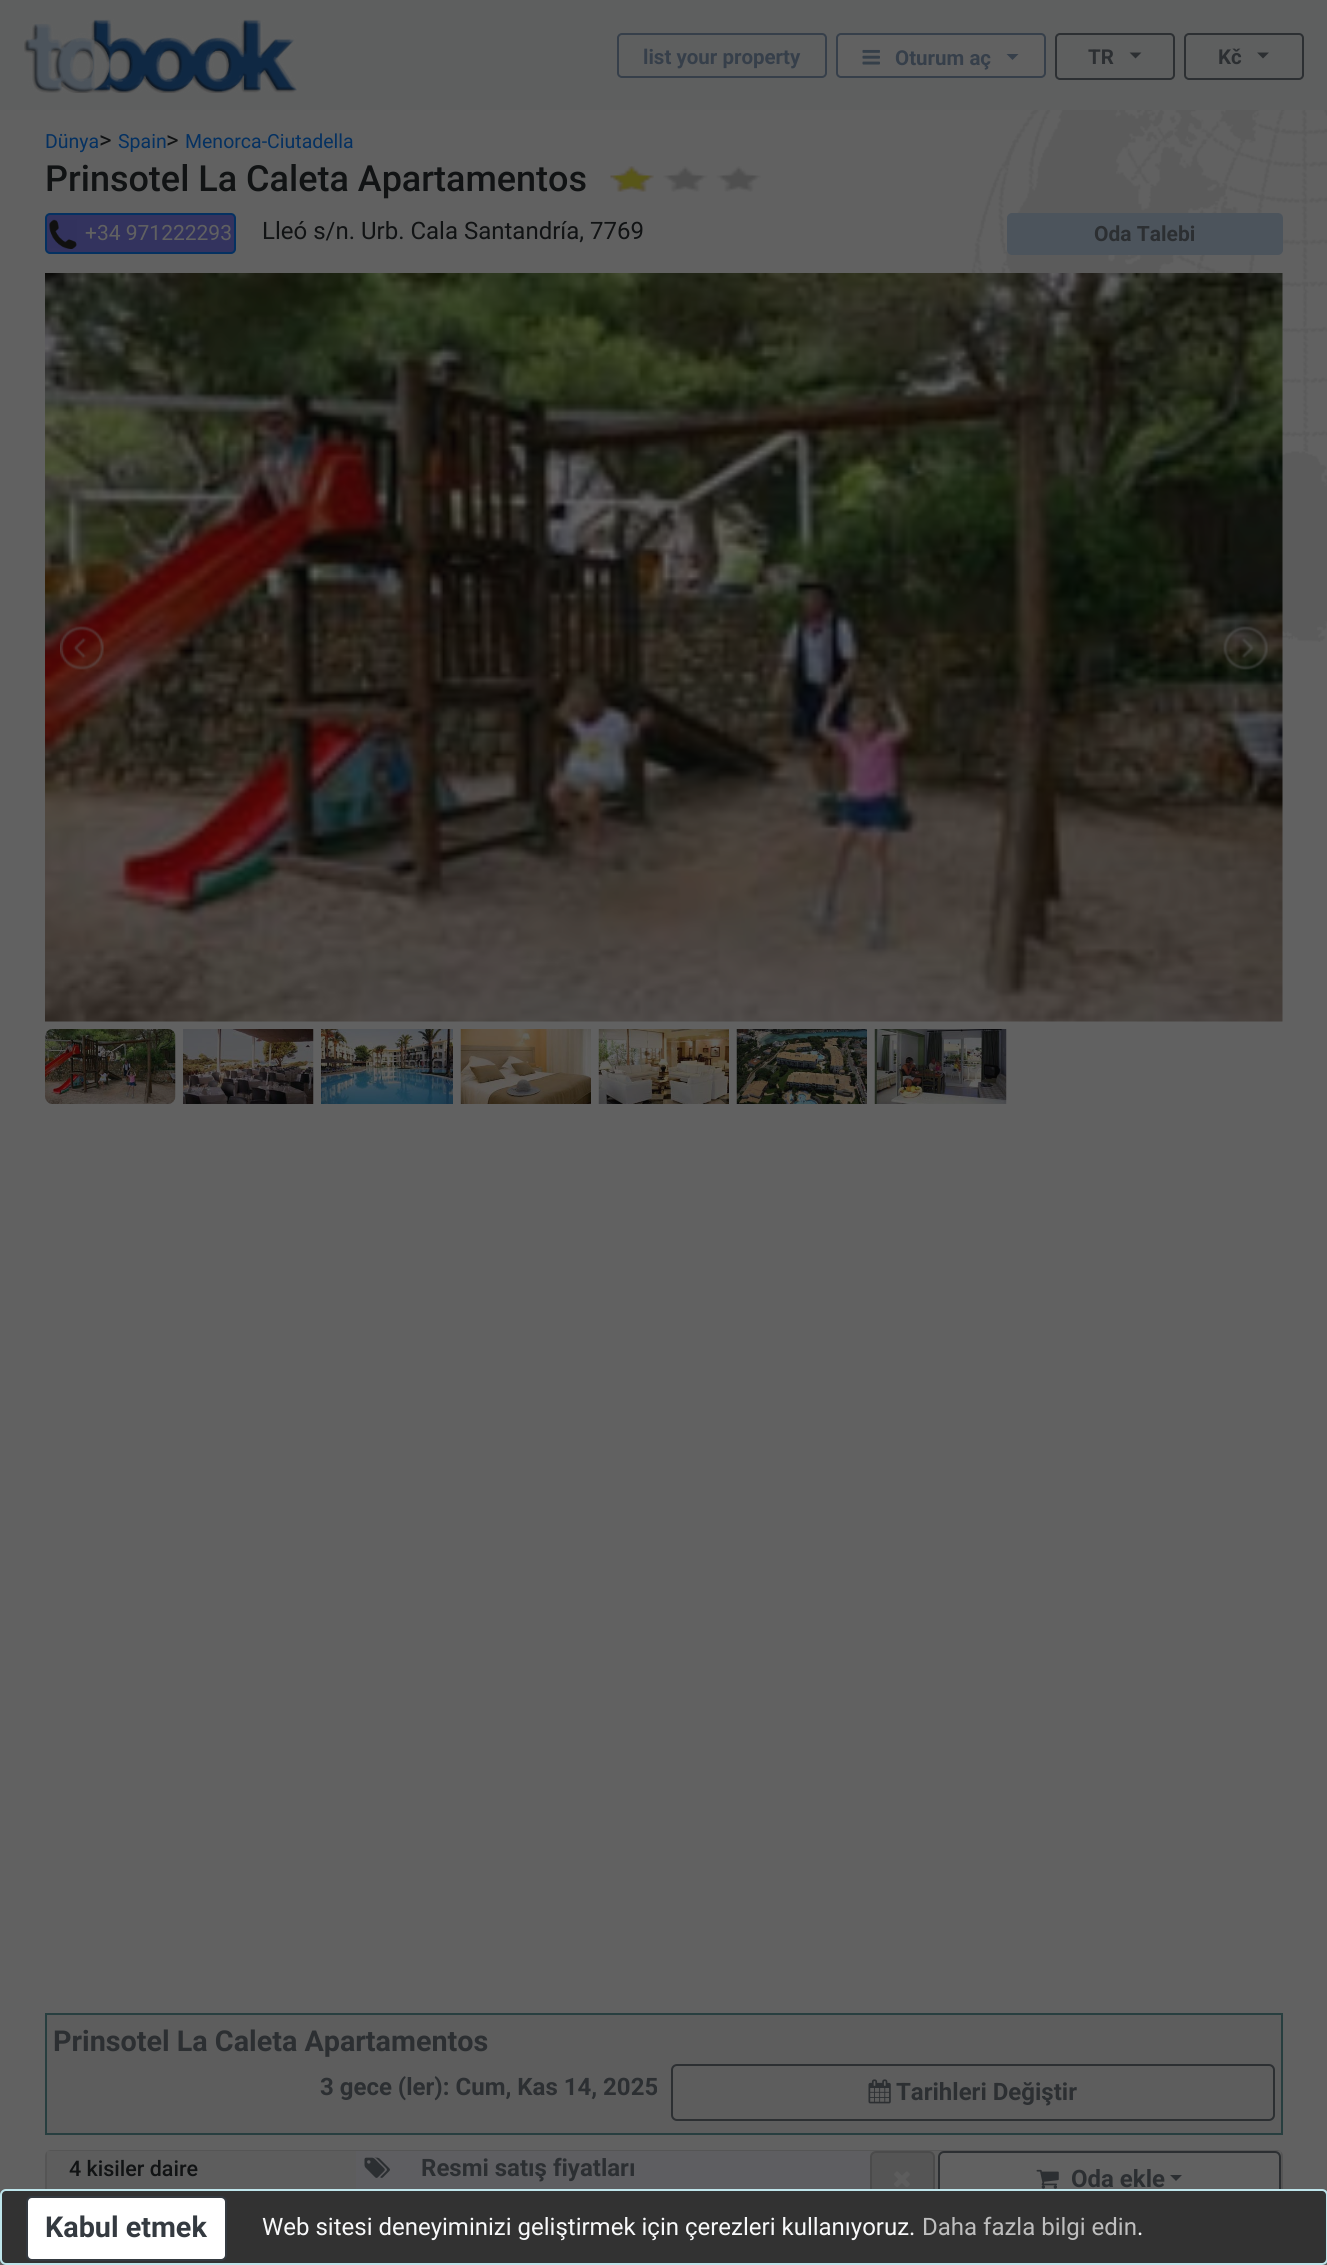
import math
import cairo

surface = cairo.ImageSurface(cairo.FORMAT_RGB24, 1327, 2265)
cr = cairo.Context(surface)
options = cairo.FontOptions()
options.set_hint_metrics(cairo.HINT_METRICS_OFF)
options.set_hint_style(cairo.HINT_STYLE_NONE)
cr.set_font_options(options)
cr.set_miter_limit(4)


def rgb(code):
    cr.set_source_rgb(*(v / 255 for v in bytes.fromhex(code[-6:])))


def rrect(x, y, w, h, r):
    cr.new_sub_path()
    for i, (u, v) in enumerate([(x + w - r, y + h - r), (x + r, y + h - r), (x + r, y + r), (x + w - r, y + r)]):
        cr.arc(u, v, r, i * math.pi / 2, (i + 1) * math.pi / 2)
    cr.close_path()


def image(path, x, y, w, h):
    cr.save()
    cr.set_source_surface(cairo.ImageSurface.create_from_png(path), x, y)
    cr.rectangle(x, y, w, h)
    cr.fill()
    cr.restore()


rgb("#616161")
cr.paint()
image("img/1.png", 969, 110, 358, 532)
rgb("#5e5f5f")
cr.rectangle(0, 0, 1327, 110)
cr.fill()
image("img/2.png", 24, 19, 273, 74)
rrect(618, 34, 208, 43, 4)
rgb("#363f4a")
cr.stroke()
rgb("#616161")
rrect(837, 34, 208, 43, 4)
cr.fill_preserve()
rgb("#363f4a")
cr.stroke()
image("img/3.png", 862, 49, 18, 16)
cr.new_path()
cr.move_to(1006.5, 54)
cr.line_to(1018.5, 54)
cr.line_to(1012.5, 60)
cr.close_path()
cr.fill()
rrect(1056, 34, 118, 45, 4)
rgb("#2c2f32")
cr.stroke()
cr.new_path()
cr.move_to(1129.5, 52.5)
cr.line_to(1141.5, 52.5)
cr.line_to(1135.5, 58.5)
cr.close_path()
cr.fill()
rrect(1185, 34, 118, 45, 4)
cr.stroke()
cr.new_path()
cr.move_to(1257, 52.5)
cr.line_to(1269, 52.5)
cr.line_to(1263, 58.5)
cr.close_path()
cr.fill()
image("img/4.png", 610, 166, 151, 26)
rgb("#33335e")
rrect(46, 214, 189, 39, 4)
cr.fill_preserve()
rgb("#053161")
cr.stroke()
image("img/5.png", 49, 219, 28, 30)
rgb("#4c545c")
rrect(1008, 214, 274, 40, 4)
cr.fill_preserve()
cr.stroke()
image("img/6.png", 45, 273, 1238, 749)
image("img/7.png", 60, 626, 44, 44)
image("img/8.png", 1223, 626, 45, 44)
image("img/9.png", 45, 1029, 131, 75)
image("img/10.png", 183, 1029, 131, 75)
image("img/11.png", 321, 1029, 132, 75)
image("img/12.png", 460, 1029, 131, 75)
image("img/13.png", 598, 1029, 131, 75)
image("img/14.png", 736, 1029, 131, 75)
image("img/15.png", 874, 1029, 133, 75)
cr.rectangle(46, 2014, 1236, 120)
rgb("#273e3f")
cr.stroke()
rgb("#5d5d5d")
cr.rectangle(47, 2015, 1234, 118)
cr.fill()
rrect(672, 2065, 602, 55, 5)
rgb("#2c2f32")
cr.stroke()
image("img/16.png", 868, 2079, 23, 25)
rrect(46, 2151, 1236, 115, 5)
rgb("#555555")
cr.stroke()
rgb("#5d5d5d")
cr.rectangle(47, 2151, 309, 38)
cr.fill()
rgb("#5e5e61")
cr.rectangle(356, 2151, 514, 38)
cr.fill()
image("img/17.png", 364, 2157, 26, 21)
rgb("#5d5d5d")
cr.rectangle(870, 2151, 411, 38)
cr.fill()
rgb("#555555")
rrect(871, 2152, 63, 55, 5)
cr.fill_preserve()
rgb("#4b4b4b")
cr.stroke()
image("img/18.png", 894, 2171, 16, 16)
rgb("#616161")
rrect(939, 2152, 341, 55, 5)
cr.fill_preserve()
rgb("#2c2f32")
cr.stroke()
image("img/19.png", 1036, 2169, 23, 20)
cr.new_path()
cr.move_to(1170, 2175)
cr.line_to(1182, 2175)
cr.line_to(1176, 2181)
cr.close_path()
cr.fill()
rgb("#323232")
rrect(1, 2190, 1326, 74, 5)
cr.fill_preserve()
rgb("#bee5eb")
cr.stroke()
rgb("#ffffff")
rrect(27, 2197, 199, 63, 5)
cr.fill_preserve()
rgb("#343a40")
cr.stroke()
cr.select_font_face("Roboto", cairo.FONT_SLANT_NORMAL, cairo.FONT_WEIGHT_BOLD)
cr.set_font_size(20.5)
rgb("#363f4a")
cr.move_to(643, 64)
cr.show_text("list your property")
cr.move_to(895, 65)
cr.show_text("Oturum aç")
rgb("#2c2f32")
cr.move_to(1088, 64)
cr.show_text("TR")
cr.move_to(1218, 64)
cr.show_text("Kč")
cr.select_font_face("Roboto")
cr.set_font_size(19.5)
rgb("#053161")
cr.move_to(45, 148)
cr.show_text("Dünya")
cr.set_font_size(24)
rgb("#111314")
cr.move_to(99, 148)
cr.show_text(">")
cr.set_font_size(19.5)
rgb("#053161")
cr.move_to(118, 148)
cr.show_text("Spain")
cr.set_font_size(24)
rgb("#111314")
cr.move_to(166, 148)
cr.show_text(">")
cr.set_font_size(19.5)
rgb("#053161")
cr.move_to(185, 148)
cr.show_text("Menorca-Ciutadella")
cr.select_font_face("Roboto Medium")
cr.set_font_size(36)
rgb("#111314")
cr.move_to(45, 191)
cr.show_text("Prinsotel La Caleta Apartamentos")
cr.select_font_face("Roboto")
cr.set_font_size(21)
rgb("#616161")
cr.move_to(85, 240)
cr.show_text("+34 971222293")
cr.set_font_size(24)
rgb("#111314")
cr.move_to(262, 239)
cr.show_text("Lleó s/n. Urb. Cala Santandría, 7769")
cr.select_font_face("Roboto", cairo.FONT_SLANT_NORMAL, cairo.FONT_WEIGHT_BOLD)
cr.set_font_size(21)
rgb("#2c2f32")
cr.move_to(1094, 241)
cr.show_text("Oda Talebi")
cr.set_font_size(28.75)
cr.move_to(53, 2051)
cr.show_text("Prinsotel La Caleta Apartamentos")
cr.set_font_size(24)
cr.move_to(320, 2095)
cr.show_text("3 gece (ler): Cum, Kas 14, 2025")
cr.move_to(896, 2100)
cr.show_text("Tarihleri Değiştir")
cr.select_font_face("Roboto Medium")
cr.set_font_size(21.5)
rgb("#111314")
cr.move_to(69, 2176)
cr.show_text("4 kisiler daire")
cr.select_font_face("Roboto", cairo.FONT_SLANT_NORMAL, cairo.FONT_WEIGHT_BOLD)
cr.set_font_size(24)
rgb("#2c2f32")
cr.move_to(421, 2176)
cr.show_text("Resmi satış fiyatları")
cr.move_to(1071, 2187)
cr.show_text("Oda ekle")
cr.set_font_size(28.75)
rgb("#343a40")
cr.move_to(45, 2237)
cr.show_text("Kabul etmek")
cr.select_font_face("Roboto")
cr.set_font_size(24)
rgb("#f8f9fa")
cr.move_to(262, 2235)
cr.show_text("Web sitesi deneyiminizi geliştirmek için çerezleri kullanıyoruz.")
rgb("#bebebe")
cr.move_to(922, 2235)
cr.show_text("Daha fazla bilgi edin")
rgb("#f8f9fa")
cr.move_to(1137, 2235)
cr.show_text(".")
surface.write_to_png("page.png")
